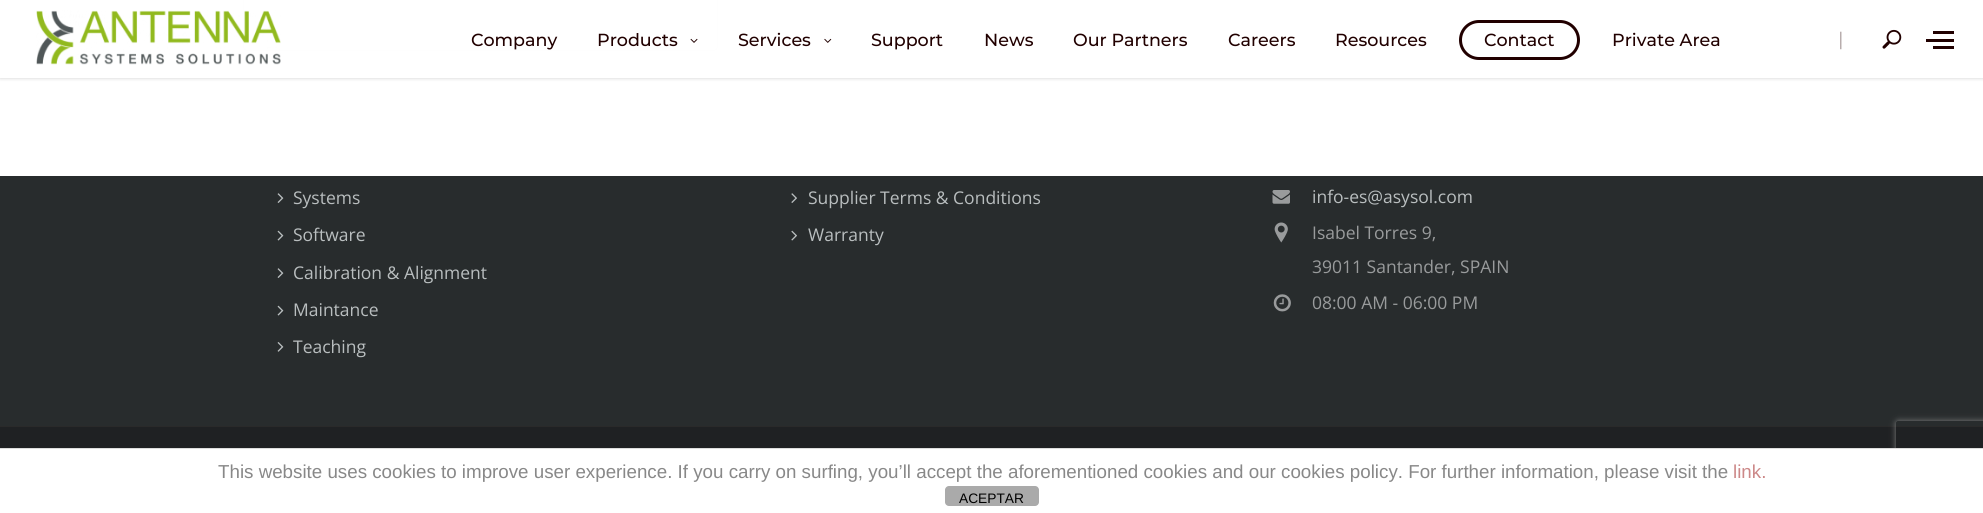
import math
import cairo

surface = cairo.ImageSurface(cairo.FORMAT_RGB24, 1983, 513)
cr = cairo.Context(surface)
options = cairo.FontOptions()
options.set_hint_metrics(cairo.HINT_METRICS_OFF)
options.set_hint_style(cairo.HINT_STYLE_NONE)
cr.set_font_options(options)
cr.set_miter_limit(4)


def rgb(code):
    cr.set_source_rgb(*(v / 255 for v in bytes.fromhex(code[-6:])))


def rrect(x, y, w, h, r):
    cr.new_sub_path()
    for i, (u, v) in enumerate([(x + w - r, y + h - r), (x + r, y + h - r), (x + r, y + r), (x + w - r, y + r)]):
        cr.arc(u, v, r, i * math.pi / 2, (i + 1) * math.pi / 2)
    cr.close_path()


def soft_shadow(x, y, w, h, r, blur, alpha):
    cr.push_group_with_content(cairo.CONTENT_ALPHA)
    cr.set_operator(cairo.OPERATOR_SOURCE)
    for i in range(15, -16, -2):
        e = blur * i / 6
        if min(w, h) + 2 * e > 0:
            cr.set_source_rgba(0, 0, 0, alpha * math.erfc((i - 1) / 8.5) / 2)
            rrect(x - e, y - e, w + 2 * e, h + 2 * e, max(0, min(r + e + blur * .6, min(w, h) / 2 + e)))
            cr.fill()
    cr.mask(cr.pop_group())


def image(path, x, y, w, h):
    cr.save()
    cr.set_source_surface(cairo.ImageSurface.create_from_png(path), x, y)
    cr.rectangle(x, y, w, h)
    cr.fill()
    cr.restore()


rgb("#282c2d")
cr.paint()
rgb("#ffffff")
cr.rectangle(0, 0, 1983, 176)
cr.fill()
rrect(243.5, -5.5, 474, 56, 4.5)
rgb("#f0f0f0")
cr.set_line_width(1)
cr.stroke()
cr.save()
cr.set_fill_rule(cairo.FILL_RULE_EVEN_ODD)
cr.new_path()
cr.move_to(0, 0)
cr.line_to(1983, 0)
cr.line_to(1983, 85)
cr.line_to(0, 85)
cr.close_path()
cr.move_to(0, -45)
cr.line_to(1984, -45)
cr.line_to(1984, 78)
cr.line_to(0, 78)
cr.close_path()
cr.clip()
rgb("#000000")
soft_shadow(0, -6, 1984, 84, 0, 2, 0.2)
cr.restore()
cr.set_source_rgba(1, 1, 1, 0.9)
cr.rectangle(0, 0, 1983, 78)
cr.fill()
image("img/1.png", 36, 10, 245, 55)
image("img/2.png", 690, 38, 8, 5)
image("img/3.png", 824, 38, 8, 5)
rrect(1460.5, 21.5, 118, 37, 18.5)
rgb("#210000")
cr.set_line_width(3)
cr.stroke()
image("img/4.png", 1882, 29, 20, 20)
for x, y, w, h, color in [
    (1933, 31, 21, 3, "#210000"),
    (1926, 39, 28, 3, "#210000"),
    (1933, 46, 21, 3, "#210000"),
]:
    rgb(color)
    cr.rectangle(x, y, w, h)
    cr.fill()
image("img/5.png", 277, 193, 7, 10)
image("img/6.png", 277, 230, 7, 11)
image("img/5.png", 277, 268, 7, 10)
image("img/6.png", 277, 305, 7, 11)
image("img/7.png", 277, 342, 7, 10)
image("img/8.png", 791, 193, 6, 10)
image("img/9.png", 791, 230, 6, 11)
image("img/10.png", 1272, 190, 18, 14)
image("img/11.png", 1274, 222, 14, 21)
image("img/12.png", 1273, 294, 18, 18)
rgb("#1f2123")
cr.rectangle(0, 427, 1983, 21)
cr.fill()
rgb("#2a2a2a")
cr.rectangle(0, 426, 1983, 1)
cr.fill()
cr.save()
cr.set_fill_rule(cairo.FILL_RULE_EVEN_ODD)
cr.new_path()
cr.move_to(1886, 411)
cr.line_to(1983, 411)
cr.line_to(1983, 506)
cr.line_to(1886, 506)
cr.close_path()
cr.move_to(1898.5, 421)
cr.line_to(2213.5, 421)
cr.curve_to(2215, 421, 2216, 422, 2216, 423.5)
cr.line_to(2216, 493.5)
cr.curve_to(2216, 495, 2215, 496, 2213.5, 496)
cr.line_to(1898.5, 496)
cr.curve_to(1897, 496, 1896, 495, 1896, 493.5)
cr.line_to(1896, 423.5)
cr.curve_to(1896, 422, 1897, 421, 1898.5, 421)
cr.close_path()
cr.clip()
rgb("#808080")
soft_shadow(1896, 421, 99, 75, 2.5, 3, 1)
cr.restore()
rgb("#ffffff")
cr.rectangle(0, 449, 1983, 64)
cr.fill()
rgb("#dddddd")
cr.rectangle(0, 448, 1983, 1)
cr.fill()
rgb("#aaaaaa")
rrect(945, 486, 94, 20, 4)
cr.fill()
cr.select_font_face("Montserrat Medium")
cr.set_font_size(17.5)
rgb("#210000")
for x, y, s in [
    (471, 46, "Company"),
    (597, 46, "Products"),
    (738, 46, "Services"),
    (871, 46, "Support"),
    (984, 46, "News"),
    (1073, 46, "Our Partners"),
    (1228, 46, "Careers"),
    (1335, 46, "Resources"),
    (1484, 46, "Contact"),
    (1612, 46, "Private Area"),
]:
    cr.move_to(x, y)
    cr.show_text(s)
cr.select_font_face("Open Sans")
rgb("#a69999")
cr.move_to(1836, 45)
cr.show_text("|")
rgb("#b9bebf")
for x, y, s in [
    (293, 204, "Systems"),
    (293, 241, "Software"),
    (293, 279, "Calibration & Alignment"),
    (293, 316, "Maintance"),
    (293, 353, "Teaching"),
    (808, 204, "Supplier Terms & Conditions"),
    (808, 241, "Warranty"),
    (1312, 203, "info-es@asysol.com"),
]:
    cr.move_to(x, y)
    cr.show_text(s)
rgb("#999b9c")
for x, y, s in [
    (1312, 239, "Isabel Torres 9,"),
    (1312, 273, "39011 Santander, SPAIN"),
    (1312, 309, "08:00 AM - 06:00 PM"),
]:
    cr.move_to(x, y)
    cr.show_text(s)
cr.select_font_face("Liberation Sans")
cr.set_font_size(18.75)
rgb("#888888")
cr.move_to(218, 478)
cr.show_text("This website uses cookies to improve user experience. If you carry on surfing, you’ll accept the aforementioned cookies and our cookies policy. For further information, please visit the")
rgb("#cc8888")
cr.move_to(1733, 478)
cr.show_text("link.")
cr.set_font_size(13.75)
rgb("#000000")
cr.move_to(959, 503)
cr.show_text("ACEPTAR")
surface.write_to_png("page.png")
